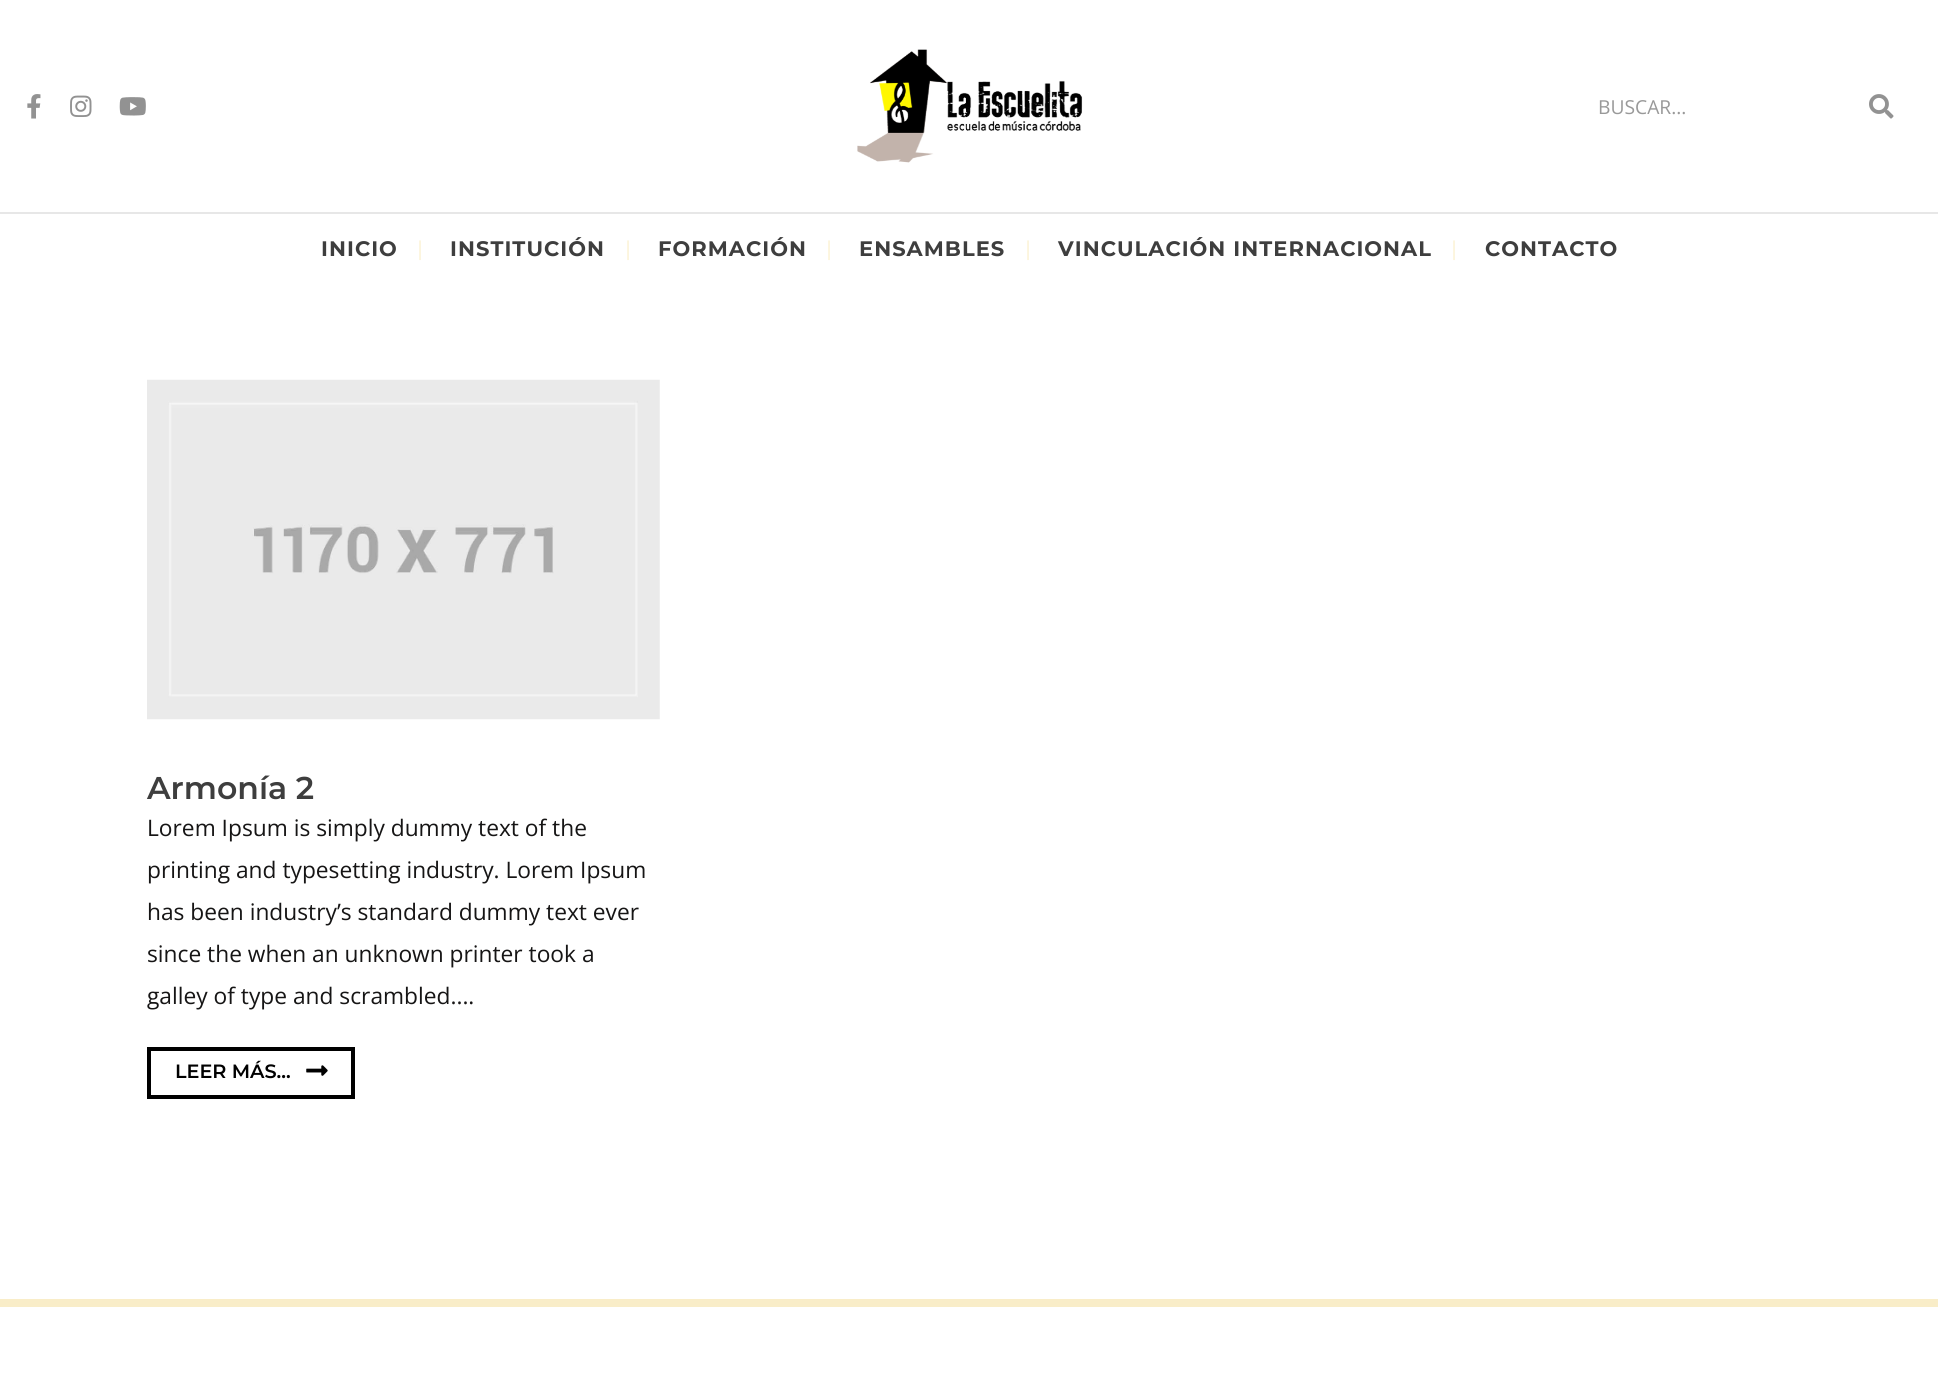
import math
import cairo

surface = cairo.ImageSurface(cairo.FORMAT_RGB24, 1938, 1399)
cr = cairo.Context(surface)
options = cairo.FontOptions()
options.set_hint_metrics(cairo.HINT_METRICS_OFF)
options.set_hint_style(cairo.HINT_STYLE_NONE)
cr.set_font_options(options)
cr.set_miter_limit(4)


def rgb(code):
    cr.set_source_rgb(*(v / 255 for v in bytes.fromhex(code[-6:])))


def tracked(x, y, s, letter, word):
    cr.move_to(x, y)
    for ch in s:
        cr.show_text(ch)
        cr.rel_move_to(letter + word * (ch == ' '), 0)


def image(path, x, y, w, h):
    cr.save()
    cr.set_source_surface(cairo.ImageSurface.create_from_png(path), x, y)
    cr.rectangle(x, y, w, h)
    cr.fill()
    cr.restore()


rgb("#ffffff")
cr.paint()
image("img/1.png", 27, 94, 14, 25)
image("img/2.png", 70, 95, 22, 22)
image("img/3.png", 119, 97, 27, 19)
image("img/4.png", 857, 49, 226, 114)
image("img/5.png", 1869, 94, 25, 25)
rgb("#e7e7e7")
cr.rectangle(0, 212, 1938, 2)
cr.fill()
image("img/6.png", 147, 379, 513, 341)
cr.rectangle(149, 1049, 204, 48)
rgb("#000000")
cr.set_line_width(4)
cr.stroke()
image("img/7.png", 306, 1065, 22, 11)
rgb("#f9edc8")
cr.rectangle(0, 1299, 1938, 8)
cr.fill()
cr.select_font_face("Open Sans")
cr.set_font_size(19.25)
rgb("#999999")
cr.move_to(1598, 114)
cr.show_text("BUSCAR...")
cr.select_font_face("Montserrat", cairo.FONT_SLANT_NORMAL, cairo.FONT_WEIGHT_BOLD)
cr.set_font_size(21)
rgb("#3e3e3e")
tracked(321, 256, "INICIO", 1.05, 0)
cr.select_font_face("Montserrat Thin")
rgb("#f3d169")
tracked(417, 256, "|", 1.05, 0)
cr.select_font_face("Montserrat", cairo.FONT_SLANT_NORMAL, cairo.FONT_WEIGHT_BOLD)
rgb("#3e3e3e")
tracked(450, 256, "INSTITUCIÓN", 1.05, 0)
cr.select_font_face("Montserrat Thin")
rgb("#f3d169")
tracked(625, 256, "|", 1.05, 0)
cr.select_font_face("Montserrat", cairo.FONT_SLANT_NORMAL, cairo.FONT_WEIGHT_BOLD)
rgb("#3e3e3e")
tracked(658, 256, "FORMACIÓN", 1.05, 0)
cr.select_font_face("Montserrat Thin")
rgb("#f3d169")
tracked(826, 256, "|", 1.05, 0)
cr.select_font_face("Montserrat", cairo.FONT_SLANT_NORMAL, cairo.FONT_WEIGHT_BOLD)
rgb("#3e3e3e")
tracked(859, 256, "ENSAMBLES", 1.05, 0)
cr.select_font_face("Montserrat Thin")
rgb("#f3d169")
tracked(1025, 256, "|", 1.05, 0)
cr.select_font_face("Montserrat", cairo.FONT_SLANT_NORMAL, cairo.FONT_WEIGHT_BOLD)
rgb("#3e3e3e")
tracked(1058, 256, "VINCULACIÓN INTERNACIONAL", 1.05, 0)
cr.select_font_face("Montserrat Thin")
rgb("#f3d169")
tracked(1451, 256, "|", 1.05, 0)
cr.select_font_face("Montserrat", cairo.FONT_SLANT_NORMAL, cairo.FONT_WEIGHT_BOLD)
rgb("#3e3e3e")
tracked(1485, 256, "CONTACTO", 1.05, 0)
cr.select_font_face("Montserrat SemiBold")
cr.set_font_size(31.5)
cr.move_to(147, 799)
cr.show_text("Armonía 2")
cr.select_font_face("Open Sans")
cr.set_font_size(22.75)
rgb("#161515")
for x, y, s in [
    (147, 836, "Lorem Ipsum is simply dummy text of the"),
    (147, 878, "printing and typesetting industry. Lorem Ipsum"),
    (147, 920, "has been industry’s standard dummy text ever"),
    (147, 962, "since the when an unknown printer took a"),
    (147, 1004, "galley of type and scrambled...."),
]:
    cr.move_to(x, y)
    cr.show_text(s)
cr.select_font_face("Montserrat SemiBold")
cr.set_font_size(19.25)
rgb("#000000")
cr.move_to(175, 1078)
cr.show_text("LEER MÁS...")
surface.write_to_png("page.png")
